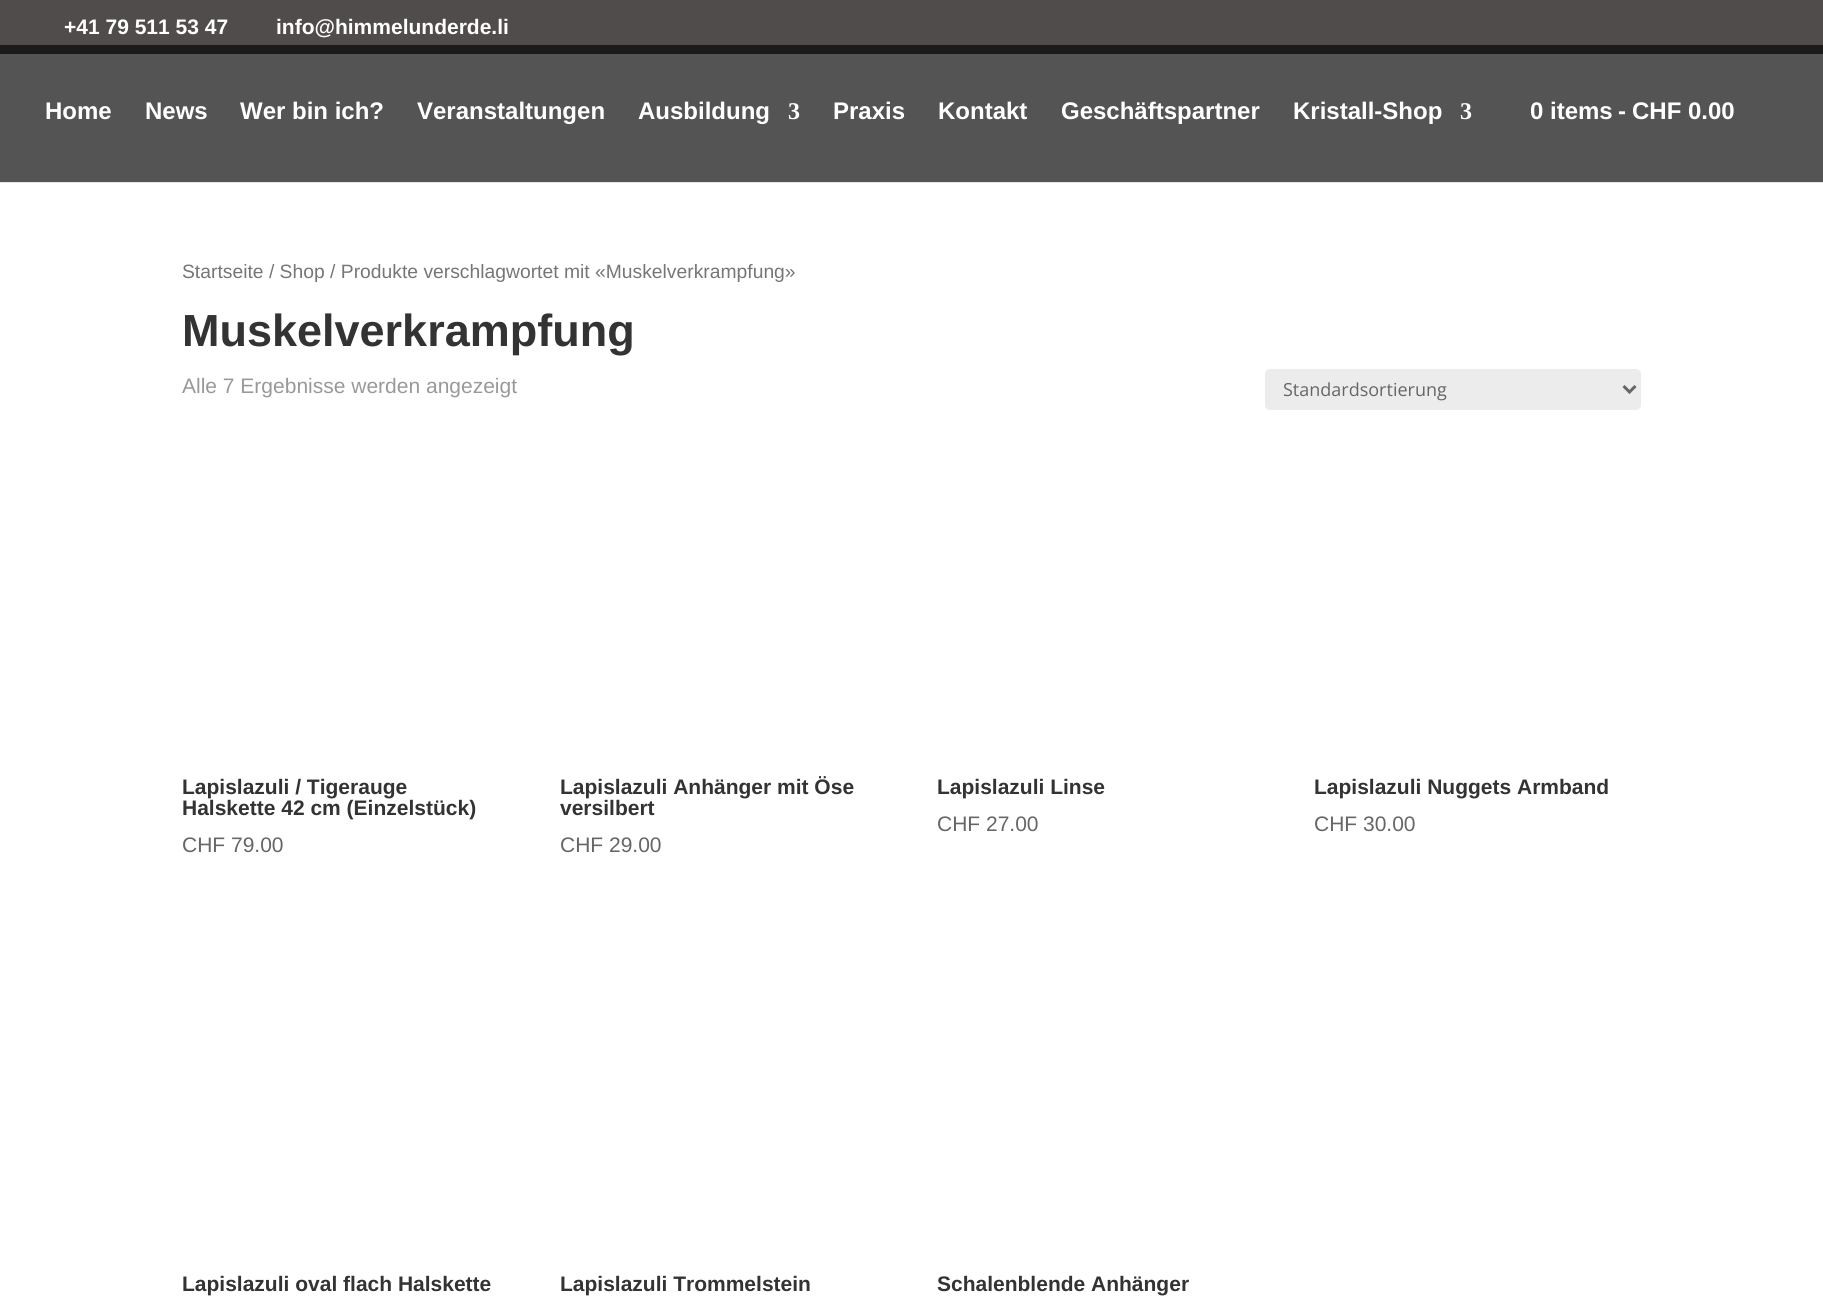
import math
import cairo

surface = cairo.ImageSurface(cairo.FORMAT_RGB24, 1823, 1296)
cr = cairo.Context(surface)
options = cairo.FontOptions()
options.set_hint_metrics(cairo.HINT_METRICS_OFF)
options.set_hint_style(cairo.HINT_STYLE_NONE)
cr.set_font_options(options)
cr.set_miter_limit(4)


def rgb(code):
    cr.set_source_rgb(*(v / 255 for v in bytes.fromhex(code[-6:])))


def rrect(x, y, w, h, r):
    cr.new_sub_path()
    for i, (u, v) in enumerate([(x + w - r, y + h - r), (x + r, y + h - r), (x + r, y + r), (x + w - r, y + r)]):
        cr.arc(u, v, r, i * math.pi / 2, (i + 1) * math.pi / 2)
    cr.close_path()


rgb("#4f4c4b")
cr.paint()
for x, y, w, h, color in [
    (0, 182, 1823, 1, "#e6e6e6"),
    (0, 54, 1823, 128, "#545454"),
    (0, 45, 1823, 9, "#1b1b1b"),
    (0, 183, 1823, 1113, "#ffffff"),
]:
    rgb(color)
    cr.rectangle(x, y, w, h)
    cr.fill()
rgb("#ececec")
rrect(1265, 369, 376, 41, 5)
cr.fill()
cr.new_path()
cr.move_to(1623.5, 386)
cr.line_to(1629.5, 392)
cr.line_to(1635.5, 386)
rgb("#666666")
cr.set_line_width(3)
cr.stroke()
cr.select_font_face("Liberation Sans", cairo.FONT_SLANT_NORMAL, cairo.FONT_WEIGHT_BOLD)
cr.set_font_size(21)
rgb("#ffffff")
cr.move_to(64, 34)
cr.show_text("+41 79 511 53 47")
cr.move_to(276, 34)
cr.show_text("info@himmelunderde.li")
cr.set_font_size(24)
for x, y, s in [
    (45, 119, "Home"),
    (145, 119, "News"),
    (240, 119, "Wer bin ich?"),
    (417, 119, "Veranstaltungen"),
    (638, 119, "Ausbildung"),
]:
    cr.move_to(x, y)
    cr.show_text(s)
cr.select_font_face("Liberation Serif", cairo.FONT_SLANT_NORMAL, cairo.FONT_WEIGHT_BOLD)
cr.move_to(788, 119)
cr.show_text("3")
cr.select_font_face("Liberation Sans", cairo.FONT_SLANT_NORMAL, cairo.FONT_WEIGHT_BOLD)
for x, y, s in [
    (833, 119, "Praxis"),
    (938, 119, "Kontakt"),
    (1061, 119, "Geschäftspartner"),
    (1293, 119, "Kristall-Shop"),
]:
    cr.move_to(x, y)
    cr.show_text(s)
cr.select_font_face("Liberation Serif", cairo.FONT_SLANT_NORMAL, cairo.FONT_WEIGHT_BOLD)
cr.move_to(1460, 119)
cr.show_text("3")
cr.select_font_face("Liberation Sans", cairo.FONT_SLANT_NORMAL, cairo.FONT_WEIGHT_BOLD)
for x, y, s in [
    (1530, 119, "0 items"),
    (1618, 119, "-"),
    (1632, 119, "CHF 0.00"),
]:
    cr.move_to(x, y)
    cr.show_text(s)
cr.select_font_face("Liberation Sans")
cr.set_font_size(19.3)
rgb("#767676")
cr.move_to(182, 278)
cr.show_text("Startseite / Shop / Produkte verschlagwortet mit «Muskelverkrampfung»")
cr.select_font_face("Liberation Sans", cairo.FONT_SLANT_NORMAL, cairo.FONT_WEIGHT_BOLD)
cr.set_font_size(45)
rgb("#333333")
cr.move_to(182, 346)
cr.show_text("Muskelverkrampfung")
cr.select_font_face("Liberation Sans")
cr.set_font_size(21)
rgb("#999999")
cr.move_to(182, 393)
cr.show_text("Alle 7 Ergebnisse werden angezeigt")
cr.select_font_face("Open Sans")
cr.set_font_size(18)
rgb("#666666")
cr.move_to(1283, 396)
cr.show_text("Standardsortierung")
cr.select_font_face("Liberation Sans", cairo.FONT_SLANT_NORMAL, cairo.FONT_WEIGHT_BOLD)
cr.set_font_size(21)
rgb("#333333")
cr.move_to(182, 794)
cr.show_text("Lapislazuli / Tigerauge")
cr.move_to(182, 815)
cr.show_text("Halskette 42 cm (Einzelstück)")
cr.select_font_face("Liberation Sans")
rgb("#666666")
cr.move_to(182, 852)
cr.show_text("CHF 79.00")
cr.select_font_face("Liberation Sans", cairo.FONT_SLANT_NORMAL, cairo.FONT_WEIGHT_BOLD)
rgb("#333333")
cr.move_to(560, 794)
cr.show_text("Lapislazuli Anhänger mit Öse")
cr.move_to(560, 815)
cr.show_text("versilbert")
cr.select_font_face("Liberation Sans")
rgb("#666666")
cr.move_to(560, 852)
cr.show_text("CHF 29.00")
cr.select_font_face("Liberation Sans", cairo.FONT_SLANT_NORMAL, cairo.FONT_WEIGHT_BOLD)
rgb("#333333")
cr.move_to(937, 794)
cr.show_text("Lapislazuli Linse")
cr.select_font_face("Liberation Sans")
rgb("#666666")
cr.move_to(937, 831)
cr.show_text("CHF 27.00")
cr.select_font_face("Liberation Sans", cairo.FONT_SLANT_NORMAL, cairo.FONT_WEIGHT_BOLD)
rgb("#333333")
cr.move_to(1314, 794)
cr.show_text("Lapislazuli Nuggets Armband")
cr.select_font_face("Liberation Sans")
rgb("#666666")
cr.move_to(1314, 831)
cr.show_text("CHF 30.00")
cr.select_font_face("Liberation Sans", cairo.FONT_SLANT_NORMAL, cairo.FONT_WEIGHT_BOLD)
rgb("#333333")
for x, y, s in [
    (182, 1291, "Lapislazuli oval flach Halskette"),
    (560, 1291, "Lapislazuli Trommelstein"),
    (937, 1291, "Schalenblende Anhänger"),
]:
    cr.move_to(x, y)
    cr.show_text(s)
surface.write_to_png("page.png")
